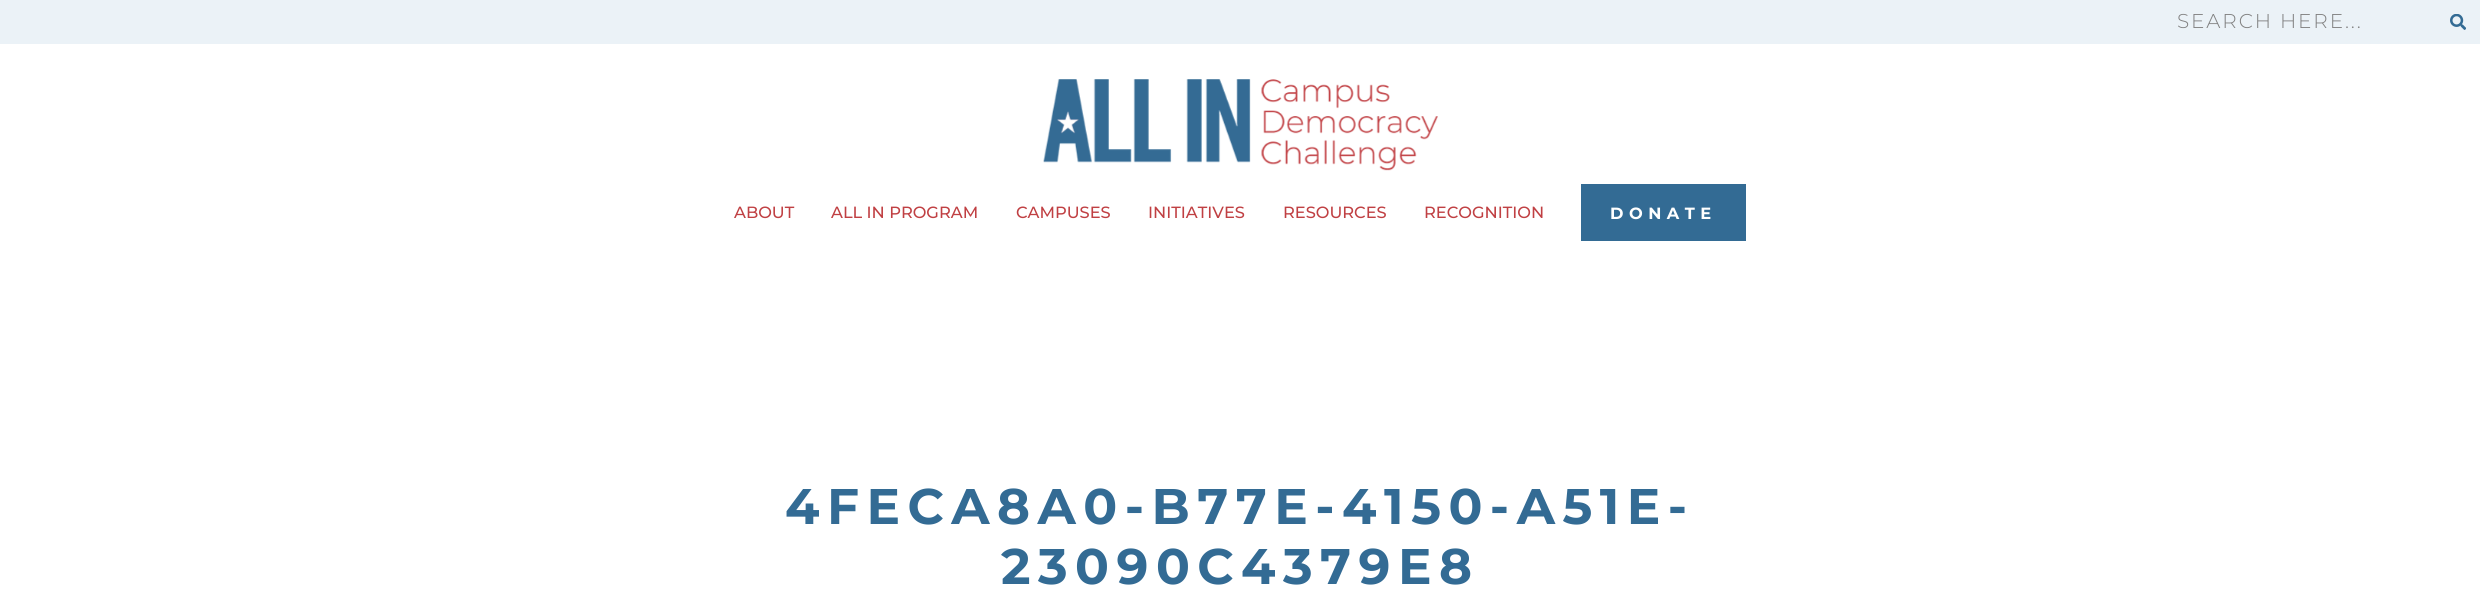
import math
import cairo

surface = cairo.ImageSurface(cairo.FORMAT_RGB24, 2480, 590)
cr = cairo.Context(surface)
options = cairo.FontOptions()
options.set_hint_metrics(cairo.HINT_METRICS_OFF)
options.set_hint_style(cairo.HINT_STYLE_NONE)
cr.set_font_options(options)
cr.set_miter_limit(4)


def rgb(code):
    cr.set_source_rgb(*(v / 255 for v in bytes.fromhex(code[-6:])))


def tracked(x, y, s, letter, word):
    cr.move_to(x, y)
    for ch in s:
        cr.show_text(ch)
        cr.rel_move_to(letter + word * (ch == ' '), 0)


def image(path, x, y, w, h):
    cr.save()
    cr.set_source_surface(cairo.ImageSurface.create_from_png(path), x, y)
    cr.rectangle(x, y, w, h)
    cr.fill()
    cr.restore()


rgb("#ffffff")
cr.paint()
rgb("#ebf2f7")
cr.rectangle(0, 0, 2480, 44)
cr.fill()
image("img/1.png", 2450, 14, 16, 16)
image("img/2.png", 1043, 79, 395, 92)
rgb("#336b94")
cr.rectangle(1581, 184, 165, 57)
cr.fill()
cr.select_font_face("Montserrat Light")
cr.set_font_size(20)
rgb("#818181")
tracked(2177, 28, "SEARCH HERE...", 1.9, 0)
cr.select_font_face("Montserrat Medium")
cr.set_font_size(16.25)
rgb("#c04043")
for x, y, s in [
    (734, 218, "ABOUT"),
    (831, 218, "ALL IN PROGRAM"),
    (1016, 218, "CAMPUSES"),
    (1148, 218, "INITIATIVES"),
    (1283, 218, "RESOURCES"),
    (1424, 218, "RECOGNITION"),
]:
    cr.move_to(x, y)
    cr.show_text(s)
cr.select_font_face("Montserrat", cairo.FONT_SLANT_NORMAL, cairo.FONT_WEIGHT_BOLD)
rgb("#ffffff")
tracked(1610, 219, "DONATE", 5.5, 0)
cr.set_font_size(50)
rgb("#336b94")
tracked(785, 524, "4FECA8A0-B77E-4150-A51E-", 7.5, 0)
tracked(1001, 584, "23090C4379E8", 7.5, 0)
surface.write_to_png("page.png")
